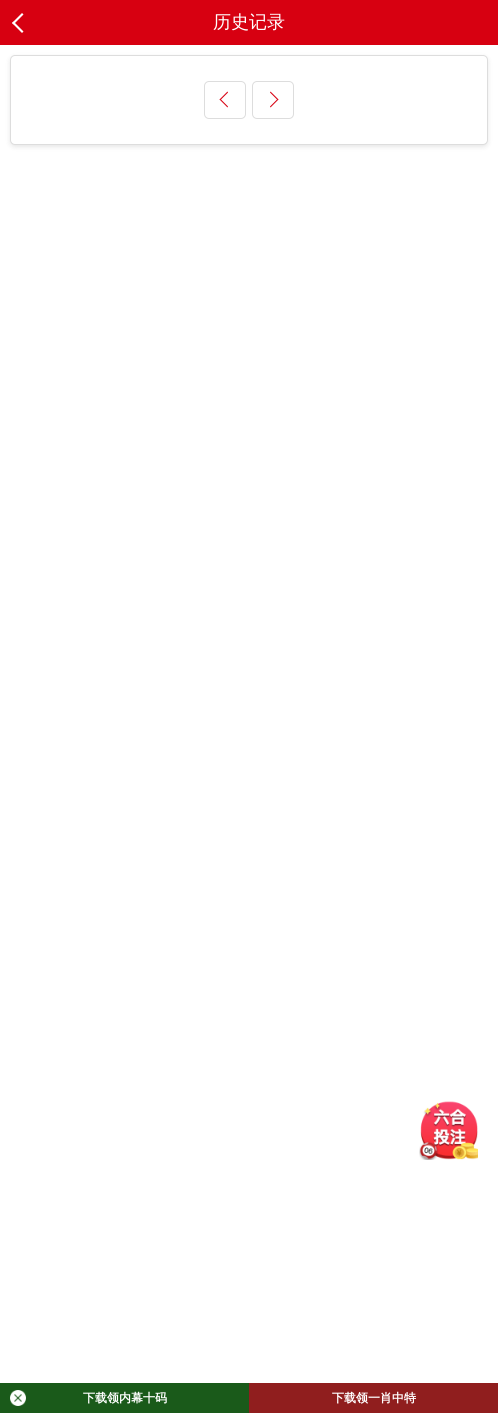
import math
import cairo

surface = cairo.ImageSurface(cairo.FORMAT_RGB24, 498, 1413)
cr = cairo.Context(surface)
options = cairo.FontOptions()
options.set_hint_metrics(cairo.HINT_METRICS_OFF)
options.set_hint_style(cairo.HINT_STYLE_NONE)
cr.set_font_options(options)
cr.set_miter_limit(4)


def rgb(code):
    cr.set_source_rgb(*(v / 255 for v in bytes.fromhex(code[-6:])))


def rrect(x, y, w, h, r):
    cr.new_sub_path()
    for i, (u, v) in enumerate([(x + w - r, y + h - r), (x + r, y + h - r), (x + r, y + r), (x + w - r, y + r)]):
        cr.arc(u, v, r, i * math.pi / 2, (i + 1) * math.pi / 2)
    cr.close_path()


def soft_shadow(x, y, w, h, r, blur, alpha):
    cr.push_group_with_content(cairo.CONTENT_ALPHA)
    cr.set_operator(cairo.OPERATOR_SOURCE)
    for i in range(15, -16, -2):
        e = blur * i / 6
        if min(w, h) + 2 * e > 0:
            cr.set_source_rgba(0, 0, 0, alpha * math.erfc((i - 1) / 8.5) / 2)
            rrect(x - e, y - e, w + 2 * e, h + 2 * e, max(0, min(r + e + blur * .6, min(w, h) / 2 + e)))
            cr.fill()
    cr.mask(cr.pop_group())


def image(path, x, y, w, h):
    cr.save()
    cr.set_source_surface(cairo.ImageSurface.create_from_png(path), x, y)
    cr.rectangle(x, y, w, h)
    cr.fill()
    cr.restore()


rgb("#ffffff")
cr.paint()
rgb("#d70011")
cr.rectangle(0, 0, 498, 45)
cr.fill()
rgb("#ffffff")
cr.new_path()
cr.move_to(22, 33)
cr.line_to(12, 23)
cr.line_to(13.5, 21.5)
cr.line_to(23.5, 31.5)
cr.close_path()
cr.fill()
cr.new_path()
cr.move_to(13.5, 24.5)
cr.line_to(12, 23)
cr.line_to(22, 13)
cr.line_to(23.5, 14.5)
cr.close_path()
cr.fill()
rgb("#000000")
soft_shadow(10, 57, 478, 90, 5, 2.5, 0.1)
rgb("#ffffff")
rrect(10.5, 55.5, 477, 89, 4.5)
cr.fill_preserve()
rgb("#dddddd")
cr.set_line_width(1)
cr.stroke()
rrect(204.5, 81.5, 41, 37, 4.5)
cr.stroke()
rgb("#d70011")
cr.new_path()
cr.move_to(227.5, 107.5)
cr.line_to(219.5, 99.5)
cr.line_to(220.5, 99)
cr.line_to(228, 106.5)
cr.close_path()
cr.fill()
cr.new_path()
cr.move_to(220.5, 100)
cr.line_to(219.5, 99.5)
cr.line_to(227.5, 91.5)
cr.line_to(228, 92.5)
cr.close_path()
cr.fill()
rrect(252.5, 81.5, 41, 37, 4.5)
rgb("#dddddd")
cr.stroke()
rgb("#d70011")
cr.new_path()
cr.move_to(270.5, 91.5)
cr.line_to(278.5, 99.5)
cr.line_to(277.5, 100)
cr.line_to(270, 92.5)
cr.close_path()
cr.fill()
cr.new_path()
cr.move_to(277.5, 99)
cr.line_to(278.5, 99.5)
cr.line_to(270.5, 107.5)
cr.line_to(270, 106.5)
cr.close_path()
cr.fill()
image("img/1.png", 419, 1101, 59, 59)
rgb("#1a5a1a")
cr.rectangle(0, 1383, 249, 30)
cr.fill()
image("img/2.png", 10, 1390, 16, 16)
rgb("#901e1e")
cr.rectangle(249, 1383, 249, 30)
cr.fill()
cr.select_font_face("WenQuanYi Zen Hei Medium")
cr.set_font_size(18)
rgb("#ffffff")
cr.move_to(213, 28)
cr.show_text("历史记录")
cr.select_font_face("WenQuanYi Zen Hei", cairo.FONT_SLANT_NORMAL, cairo.FONT_WEIGHT_BOLD)
cr.set_font_size(12)
cr.move_to(83, 1402)
cr.show_text("下载领内幕十码")
cr.move_to(332, 1402)
cr.show_text("下载领一肖中特")
surface.write_to_png("page.png")
